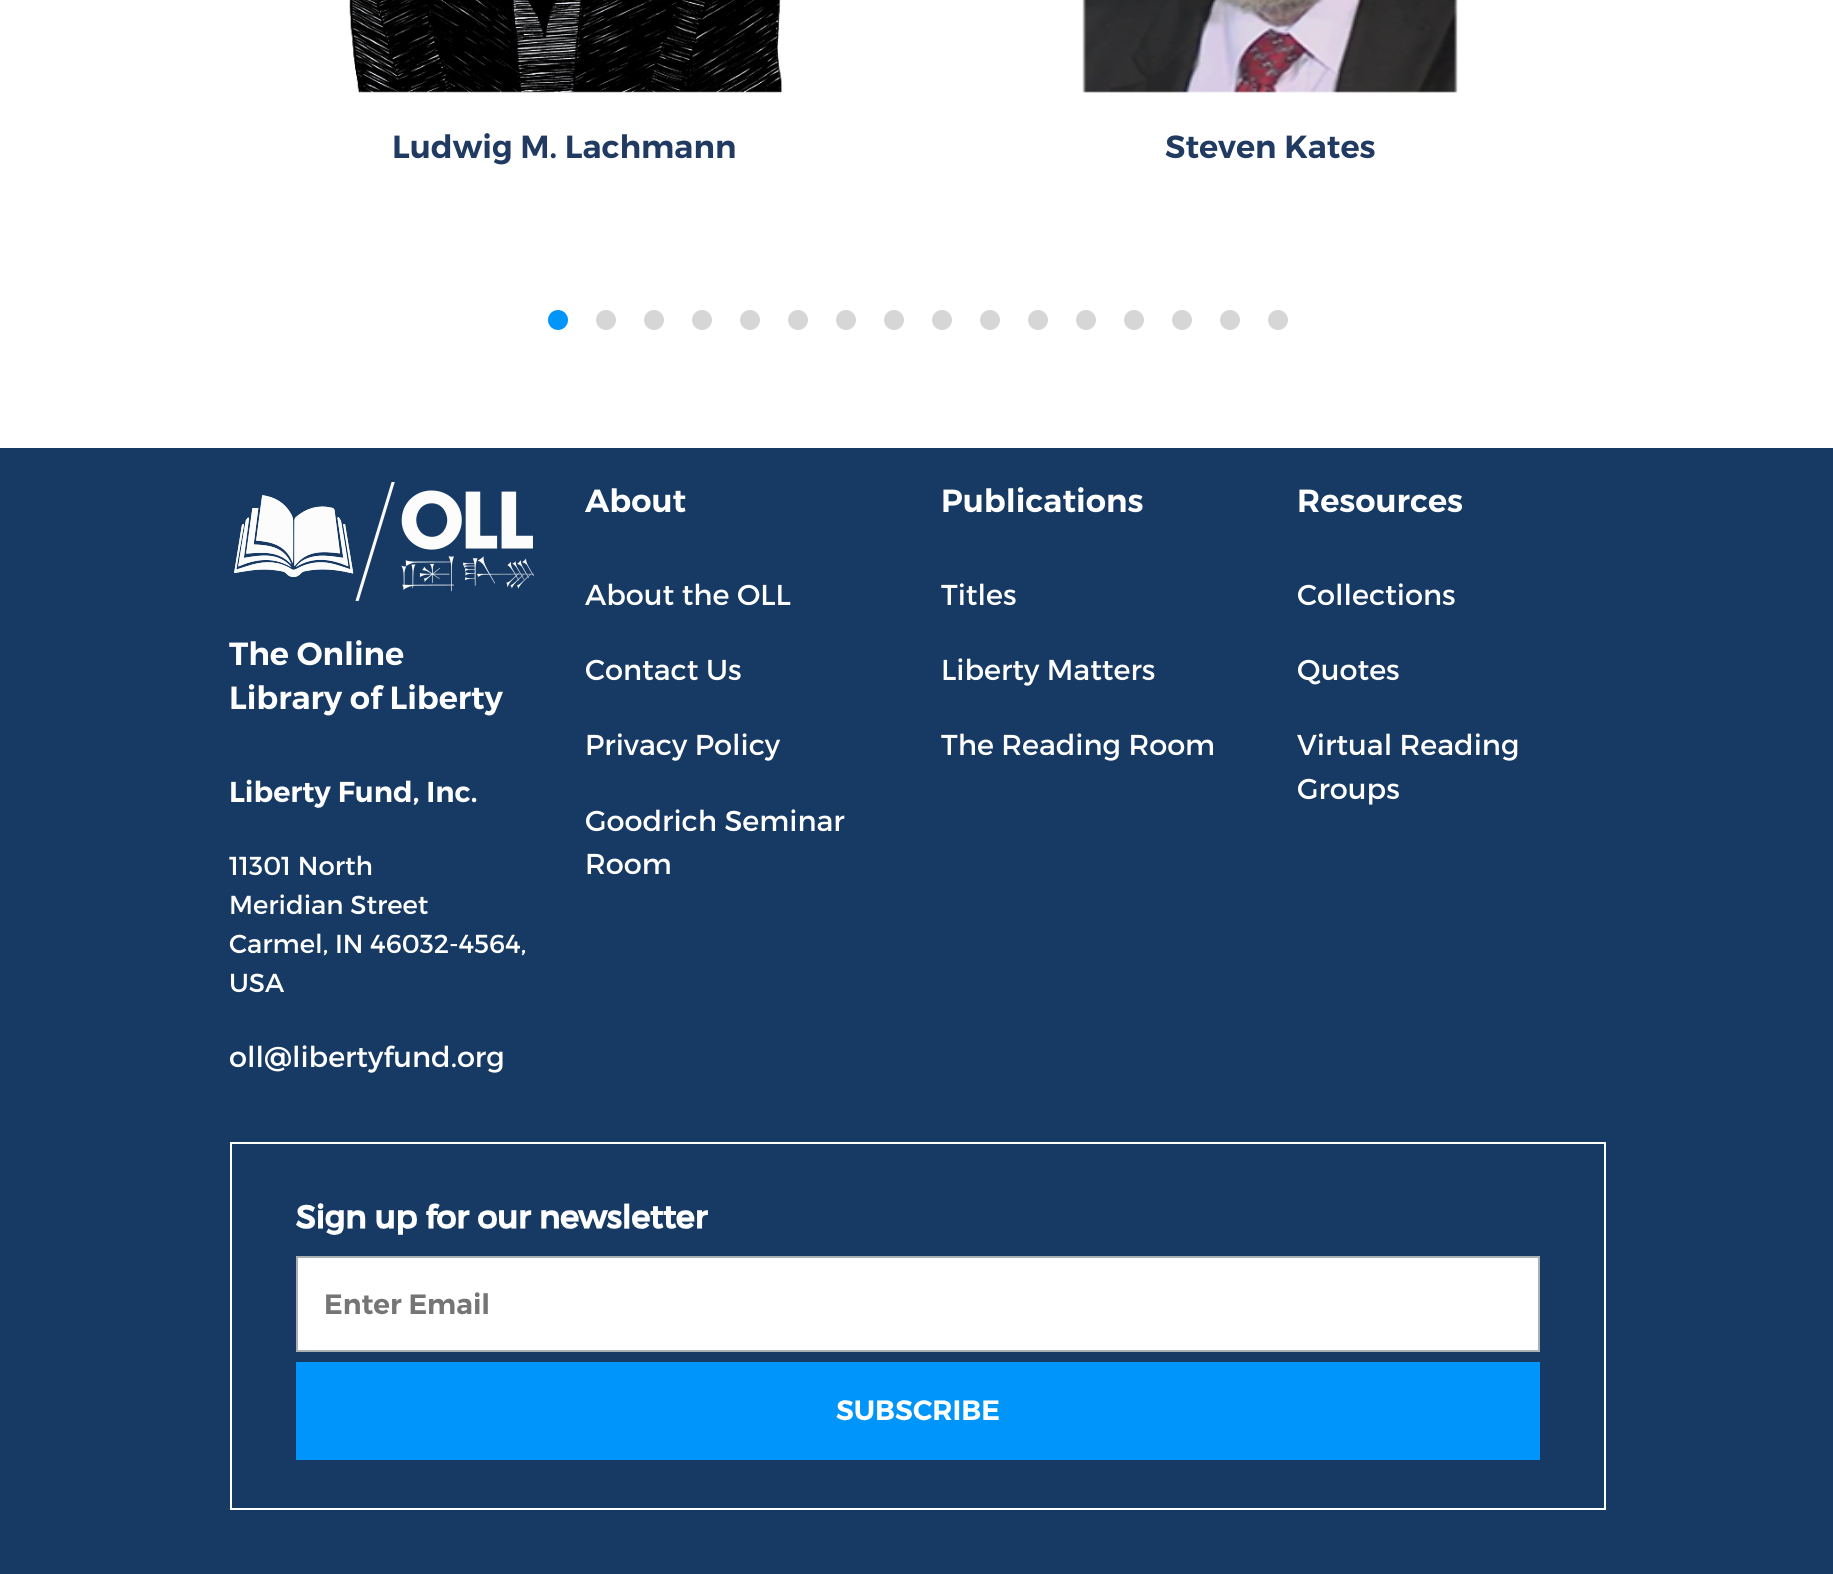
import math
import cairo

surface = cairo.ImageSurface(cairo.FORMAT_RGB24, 1833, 1574)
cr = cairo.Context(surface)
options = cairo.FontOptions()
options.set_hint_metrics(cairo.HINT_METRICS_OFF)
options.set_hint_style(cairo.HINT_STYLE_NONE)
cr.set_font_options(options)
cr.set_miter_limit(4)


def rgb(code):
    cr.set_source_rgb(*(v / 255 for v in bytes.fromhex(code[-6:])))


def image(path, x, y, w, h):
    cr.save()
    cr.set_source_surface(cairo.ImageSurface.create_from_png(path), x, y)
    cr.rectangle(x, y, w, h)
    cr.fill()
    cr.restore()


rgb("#ffffff")
cr.paint()
image("img/1.png", 349, 0, 434, 93)
image("img/2.png", 1082, 0, 376, 93)
rgb("#0095fb")
cr.arc(558, 320, 10, 0, 2 * math.pi)
cr.fill()
rgb("#d6d6d6")
cr.arc(606, 320, 10, 0, 2 * math.pi)
cr.fill()
cr.arc(654, 320, 10, 0, 2 * math.pi)
cr.fill()
cr.arc(702, 320, 10, 0, 2 * math.pi)
cr.fill()
cr.arc(750, 320, 10, 0, 2 * math.pi)
cr.fill()
cr.arc(798, 320, 10, 0, 2 * math.pi)
cr.fill()
cr.arc(846, 320, 10, 0, 2 * math.pi)
cr.fill()
cr.arc(894, 320, 10, 0, 2 * math.pi)
cr.fill()
cr.arc(942, 320, 10, 0, 2 * math.pi)
cr.fill()
cr.arc(990, 320, 10, 0, 2 * math.pi)
cr.fill()
cr.arc(1038, 320, 10, 0, 2 * math.pi)
cr.fill()
cr.arc(1086, 320, 10, 0, 2 * math.pi)
cr.fill()
cr.arc(1134, 320, 10, 0, 2 * math.pi)
cr.fill()
cr.arc(1182, 320, 10, 0, 2 * math.pi)
cr.fill()
cr.arc(1230, 320, 10, 0, 2 * math.pi)
cr.fill()
cr.arc(1278, 320, 10, 0, 2 * math.pi)
cr.fill()
rgb("#173a64")
cr.rectangle(0, 448, 1833, 1126)
cr.fill()
image("img/3.png", 234, 482, 300, 119)
image("img/4.png", 230, 1142, 1376, 368)
cr.select_font_face("Montserrat SemiBold")
cr.set_font_size(32)
rgb("#203a61")
cr.move_to(392, 158)
cr.show_text("Ludwig M. Lachmann")
cr.move_to(1165, 158)
cr.show_text("Steven Kates")
rgb("#ffffff")
cr.move_to(229, 665)
cr.show_text("The Online")
cr.move_to(229, 709)
cr.show_text("Library of Liberty")
cr.set_font_size(28.75)
cr.move_to(229, 802)
cr.show_text("Liberty Fund, Inc.")
cr.select_font_face("Montserrat")
cr.set_font_size(26)
for x, y, s in [
    (229, 875, "11301 North"),
    (229, 914, "Meridian Street"),
    (229, 953, "Carmel, IN 46032-4564,"),
    (229, 992, "USA"),
]:
    cr.move_to(x, y)
    cr.show_text(s)
cr.set_font_size(28.75)
cr.move_to(229, 1067)
cr.show_text("oll@libertyfund.org")
cr.select_font_face("Montserrat SemiBold")
cr.set_font_size(32)
cr.move_to(585, 512)
cr.show_text("About")
cr.select_font_face("Montserrat")
cr.set_font_size(28.75)
for x, y, s in [
    (585, 605, "About the OLL"),
    (585, 680, "Contact Us"),
    (585, 755, "Privacy Policy"),
    (585, 831, "Goodrich Seminar"),
    (585, 874, "Room"),
]:
    cr.move_to(x, y)
    cr.show_text(s)
cr.select_font_face("Montserrat SemiBold")
cr.set_font_size(32)
cr.move_to(941, 512)
cr.show_text("Publications")
cr.select_font_face("Montserrat")
cr.set_font_size(28.75)
for x, y, s in [
    (941, 605, "Titles"),
    (941, 680, "Liberty Matters"),
    (941, 755, "The Reading Room"),
]:
    cr.move_to(x, y)
    cr.show_text(s)
cr.select_font_face("Montserrat SemiBold")
cr.set_font_size(32)
cr.move_to(1297, 512)
cr.show_text("Resources")
cr.select_font_face("Montserrat")
cr.set_font_size(28.75)
for x, y, s in [
    (1297, 605, "Collections"),
    (1297, 680, "Quotes"),
    (1297, 755, "Virtual Reading"),
    (1297, 799, "Groups"),
]:
    cr.move_to(x, y)
    cr.show_text(s)
surface.write_to_png("page.png")
